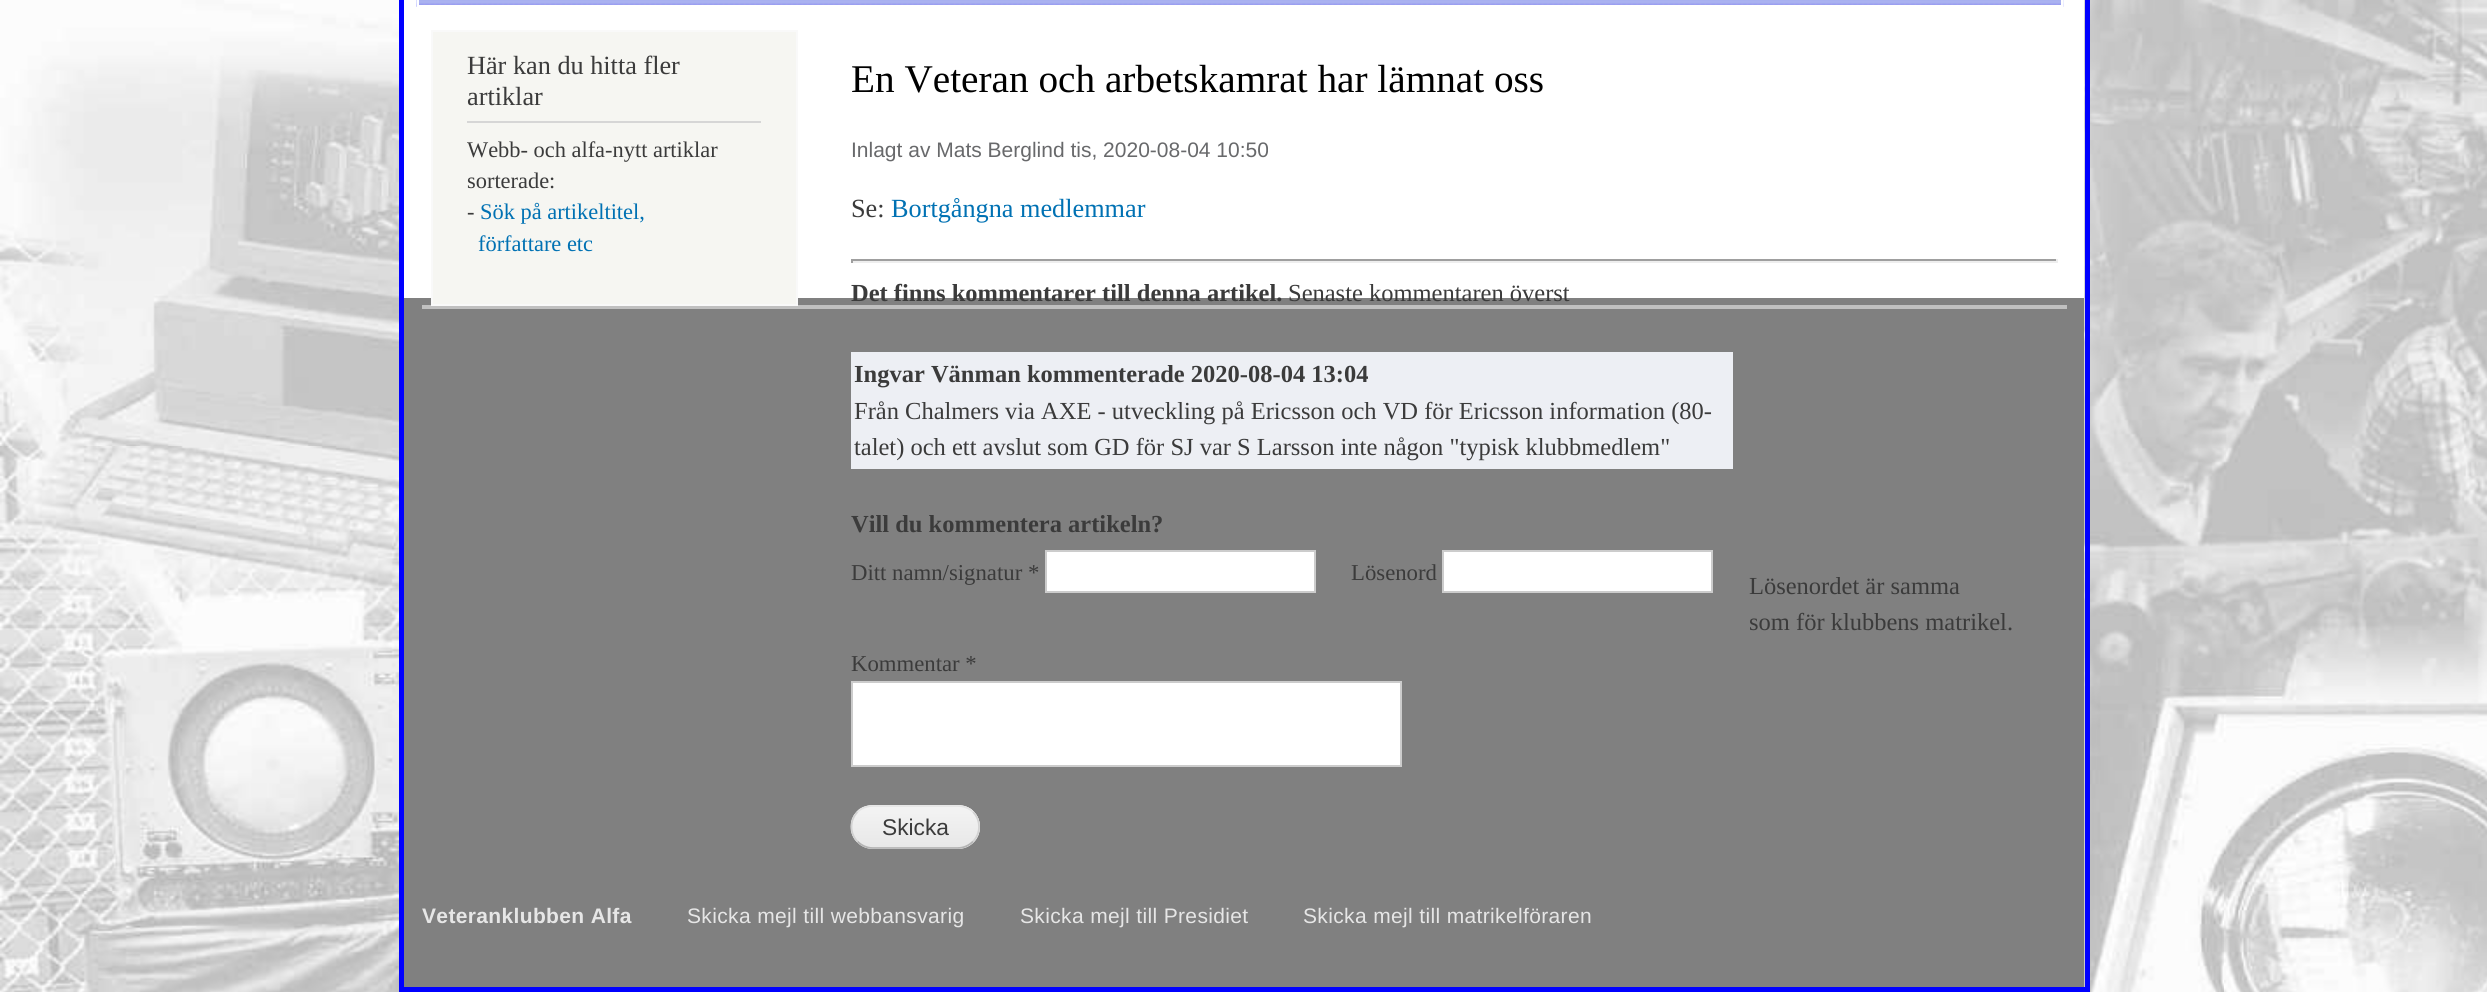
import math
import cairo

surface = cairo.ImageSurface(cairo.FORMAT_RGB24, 2487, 992)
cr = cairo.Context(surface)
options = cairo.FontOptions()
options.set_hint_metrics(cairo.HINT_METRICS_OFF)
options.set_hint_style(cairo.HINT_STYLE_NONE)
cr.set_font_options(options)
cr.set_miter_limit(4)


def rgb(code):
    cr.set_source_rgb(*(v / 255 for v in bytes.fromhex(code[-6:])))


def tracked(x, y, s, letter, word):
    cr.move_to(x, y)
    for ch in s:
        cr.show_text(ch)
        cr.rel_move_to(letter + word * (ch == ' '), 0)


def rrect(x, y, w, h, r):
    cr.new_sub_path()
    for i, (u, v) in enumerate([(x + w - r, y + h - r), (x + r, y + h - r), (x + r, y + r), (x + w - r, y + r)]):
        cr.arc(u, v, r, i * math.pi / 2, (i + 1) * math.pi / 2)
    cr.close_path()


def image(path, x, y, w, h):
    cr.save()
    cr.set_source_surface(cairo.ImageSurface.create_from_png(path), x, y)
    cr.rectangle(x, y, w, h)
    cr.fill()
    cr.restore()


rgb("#ffffff")
cr.paint()
image("img/1.png", 0, 0, 2487, 992)
cr.rectangle(401.5, -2.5, 1686, 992)
rgb("#0000ff")
cr.set_line_width(5)
cr.stroke()
rgb("#ffffff")
cr.rectangle(404, 0, 1680, 298)
cr.fill()
image("img/2.png", 416, 0, 1648, 7)
cr.set_source_rgba(0, 0, 0, 0.06)
cr.rectangle(418, -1, 1644, 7)
cr.fill_preserve()
rgb("#ffffff")
cr.set_line_width(2)
cr.stroke()
rgb("#808080")
cr.rectangle(404, 298, 1680, 689)
cr.fill()
rgb("#c0c0c0")
cr.rectangle(422, 305, 1645, 4)
cr.fill()
rgb("#f6f6f2")
cr.rectangle(432, 31, 365, 274)
cr.fill_preserve()
rgb("#f9f9f9")
cr.stroke()
for x, y, w, h, color in [
    (467, 121, 294, 2, "#d6d6d6"),
    (851, 259, 1207, 2, "#9f9f9f"),
    (2056, 259, 2, 4, "#eeeeee"),
    (851, 261, 1207, 2, "#eeeeee"),
    (851, 259, 2, 4, "#9f9f9f"),
    (851, 352, 882, 117, "#edeff4"),
]:
    rgb(color)
    cr.rectangle(x, y, w, h)
    cr.fill()
rgb("#ffffff")
cr.rectangle(1046, 551, 269, 41)
cr.fill_preserve()
rgb("#cccccc")
cr.stroke()
rgb("#ffffff")
cr.rectangle(1443, 551, 269, 41)
cr.fill_preserve()
rgb("#cccccc")
cr.stroke()
rgb("#ffffff")
cr.rectangle(852, 682, 549, 84)
cr.fill_preserve()
rgb("#cccccc")
cr.stroke()
rgb("#ffffff")
rrect(851, 805, 129, 44, 22)
cr.fill()
image("img/3.png", 850, 806, 130, 43)
cr.new_path()
cr.move_to(857.5, 812)
cr.curve_to(861.5, 808, 867, 806, 872.5, 806)
cr.line_to(958, 806)
cr.curve_to(963.5, 806, 969, 808, 973, 812)
rgb("#e4e4e4")
cr.set_line_width(1.8)
cr.stroke()
cr.new_path()
cr.move_to(973, 812)
cr.curve_to(981, 820, 981, 833.5, 973, 841.5)
rgb("#d2d2d2")
cr.stroke()
cr.new_path()
cr.move_to(973, 841.5)
cr.curve_to(969, 845.5, 963.5, 848, 958, 848)
cr.line_to(872.5, 848)
cr.curve_to(867, 848, 861.5, 845.5, 857.5, 841.5)
rgb("#b4b4b4")
cr.stroke()
cr.new_path()
cr.move_to(857.5, 841.5)
cr.curve_to(849.5, 833.5, 849.5, 820, 857.5, 812)
rgb("#d2d2d2")
cr.stroke()
cr.select_font_face("Liberation Serif")
cr.set_font_size(26.25)
rgb("#3b3b3b")
cr.move_to(467, 74)
cr.show_text("Här kan du hitta fler")
cr.move_to(467, 105)
cr.show_text("artiklar")
cr.set_font_size(22.4)
for x, y, s in [
    (467, 157, "Webb- och alfa-nytt artiklar"),
    (467, 188, "sorterade:"),
    (467, 219, "-"),
]:
    cr.move_to(x, y)
    cr.show_text(s)
rgb("#0071b3")
cr.move_to(480, 219)
cr.show_text("Sök på artikeltitel,")
cr.move_to(478, 251)
cr.show_text("författare etc")
cr.set_font_size(39.25)
rgb("#000000")
cr.move_to(851, 92)
cr.show_text("En Veteran och arbetskamrat har lämnat oss")
cr.select_font_face("Liberation Sans")
cr.set_font_size(21)
rgb("#68696b")
cr.move_to(851, 157)
cr.show_text("Inlagt av Mats Berglind tis, 2020-08-04 10:50")
cr.select_font_face("Liberation Serif")
cr.set_font_size(26.25)
rgb("#3b3b3b")
cr.move_to(851, 217)
cr.show_text("Se:")
rgb("#0071b3")
cr.move_to(891, 217)
cr.show_text("Bortgångna medlemmar")
cr.select_font_face("Liberation Serif", cairo.FONT_SLANT_NORMAL, cairo.FONT_WEIGHT_BOLD)
cr.set_font_size(24.5)
rgb("#3b3b3b")
cr.move_to(851, 301)
cr.show_text("Det finns kommentarer till denna artikel.")
cr.select_font_face("Liberation Serif")
cr.move_to(1288, 301)
cr.show_text("Senaste kommentaren överst")
cr.select_font_face("Liberation Serif", cairo.FONT_SLANT_NORMAL, cairo.FONT_WEIGHT_BOLD)
cr.move_to(854, 382)
cr.show_text("Ingvar Vänman kommenterade 2020-08-04 13:04")
cr.select_font_face("Liberation Serif")
cr.move_to(854, 419)
cr.show_text("Från Chalmers via AXE - utveckling på Ericsson och VD för Ericsson information (80-")
cr.move_to(854, 455)
cr.show_text("talet) och ett avslut som GD för SJ var S Larsson inte någon \"typisk klubbmedlem\"")
cr.select_font_face("Liberation Serif", cairo.FONT_SLANT_NORMAL, cairo.FONT_WEIGHT_BOLD)
cr.move_to(851, 532)
cr.show_text("Vill du kommentera artikeln?")
cr.select_font_face("Liberation Serif")
cr.set_font_size(22.75)
cr.move_to(851, 580)
cr.show_text("Ditt namn/signatur *")
cr.move_to(1351, 580)
cr.show_text("Lösenord")
cr.set_font_size(24.5)
cr.move_to(1749, 594)
cr.show_text("Lösenordet är samma")
cr.move_to(1749, 630)
cr.show_text("som för klubbens matrikel.")
cr.set_font_size(22.75)
cr.move_to(851, 671)
cr.show_text("Kommentar *")
cr.select_font_face("Liberation Sans")
cr.move_to(882, 835)
cr.show_text("Skicka")
cr.select_font_face("Liberation Sans", cairo.FONT_SLANT_NORMAL, cairo.FONT_WEIGHT_BOLD)
cr.set_font_size(21)
rgb("#e6e6e6")
tracked(422, 923, "Veteranklubben Alfa", 0.35, 0)
cr.select_font_face("Liberation Sans")
for x, y, s in [
    (687, 923, "Skicka mejl till webbansvarig"),
    (1020, 923, "Skicka mejl till Presidiet"),
    (1303, 923, "Skicka mejl till matrikelföraren"),
]:
    tracked(x, y, s, 0.35, 0)
surface.write_to_png("page.png")
